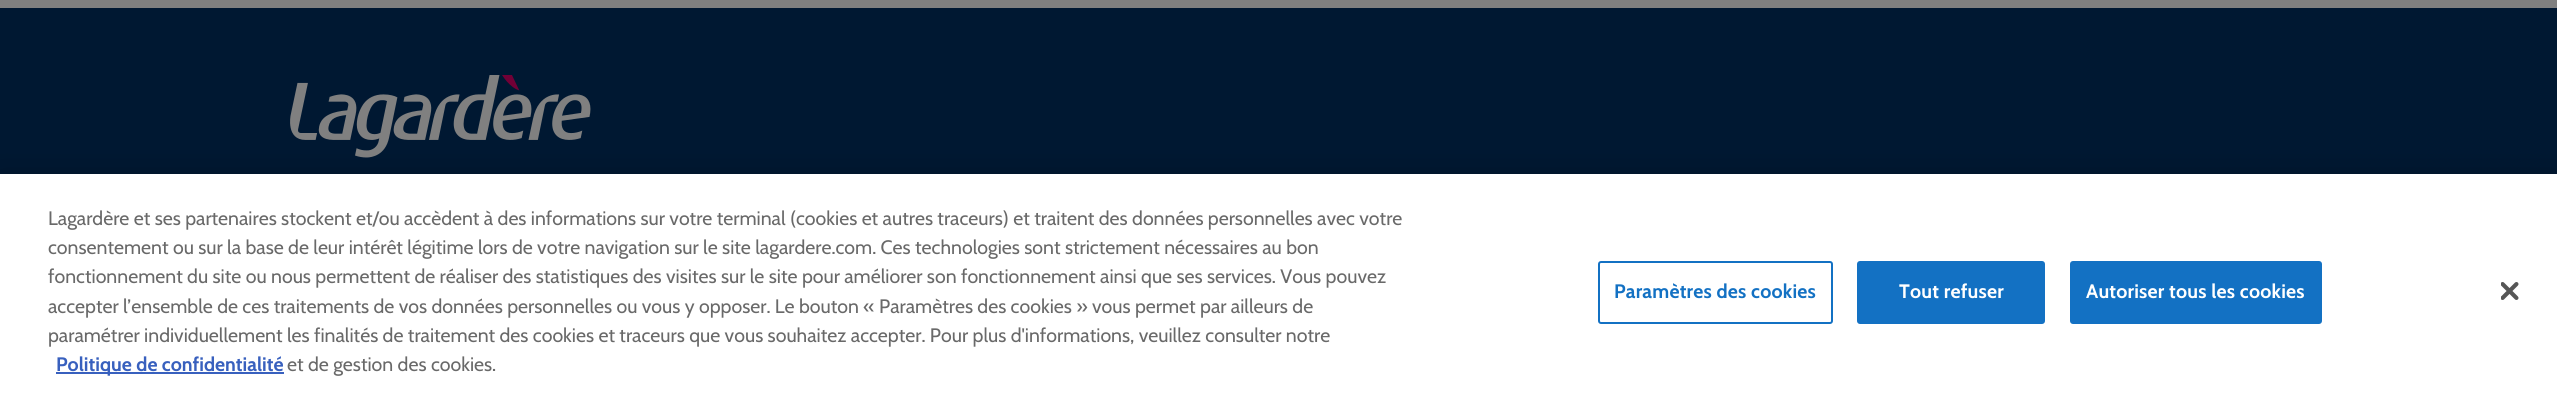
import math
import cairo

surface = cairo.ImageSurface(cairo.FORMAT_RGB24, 2557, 414)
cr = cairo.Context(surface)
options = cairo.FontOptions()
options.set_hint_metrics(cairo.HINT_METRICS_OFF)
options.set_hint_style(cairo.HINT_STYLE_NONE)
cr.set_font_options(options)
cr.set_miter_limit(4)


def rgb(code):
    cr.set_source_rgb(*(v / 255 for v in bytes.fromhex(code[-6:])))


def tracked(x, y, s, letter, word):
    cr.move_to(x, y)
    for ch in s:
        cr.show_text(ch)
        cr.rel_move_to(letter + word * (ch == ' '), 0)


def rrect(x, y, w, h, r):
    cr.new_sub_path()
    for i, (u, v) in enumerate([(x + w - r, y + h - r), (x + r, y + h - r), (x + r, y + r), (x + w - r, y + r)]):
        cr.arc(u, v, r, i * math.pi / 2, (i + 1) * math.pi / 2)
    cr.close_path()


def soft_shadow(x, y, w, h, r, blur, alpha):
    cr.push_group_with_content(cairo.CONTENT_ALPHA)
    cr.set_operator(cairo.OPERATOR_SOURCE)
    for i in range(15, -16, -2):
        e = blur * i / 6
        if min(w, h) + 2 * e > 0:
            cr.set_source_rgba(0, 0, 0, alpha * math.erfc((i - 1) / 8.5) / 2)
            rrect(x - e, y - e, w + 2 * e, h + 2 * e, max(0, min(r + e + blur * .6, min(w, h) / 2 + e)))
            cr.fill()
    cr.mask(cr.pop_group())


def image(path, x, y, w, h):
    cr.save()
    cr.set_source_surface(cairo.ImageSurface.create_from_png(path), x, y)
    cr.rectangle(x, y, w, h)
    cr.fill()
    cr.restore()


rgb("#808080")
cr.paint()
rgb("#001832")
cr.rectangle(0, 8, 2557, 166)
cr.fill()
image("img/1.png", 290, 75, 301, 83)
rgb("#000000")
soft_shadow(0, 174, 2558, 240, 0, 13.5, 0.2)
rgb("#ffffff")
cr.rectangle(0, 174, 2557, 240)
cr.fill()
rgb("#3860be")
cr.rectangle(56, 372, 228, 2)
cr.fill()
rrect(1599, 262, 233, 61, 2)
rgb("#1371c3")
cr.stroke()
rrect(1858, 262, 186, 61, 2)
cr.fill_preserve()
cr.stroke()
rrect(2071, 262, 250, 61, 2)
cr.fill_preserve()
cr.stroke()
image("img/2.png", 2501, 282, 18, 18)
cr.select_font_face("Cabin")
cr.set_font_size(19.5)
rgb("#696969")
for x, y, s in [
    (48, 225, "Lagardère et ses partenaires stockent et/ou accèdent à des informations sur votre terminal (cookies et autres traceurs) et traitent des données personnelles avec votre"),
    (48, 254, "consentement ou sur la base de leur intérêt légitime lors de votre navigation sur le site lagardere.com. Ces technologies sont strictement nécessaires au bon"),
    (48, 283, "fonctionnement du site ou nous permettent de réaliser des statistiques des visites sur le site pour améliorer son fonctionnement ainsi que ses services. Vous pouvez"),
    (48, 313, "accepter l’ensemble de ces traitements de vos données personnelles ou vous y opposer. Le bouton « Paramètres des cookies » vous permet par ailleurs de"),
    (48, 342, "paramétrer individuellement les finalités de traitement des cookies et traceurs que vous souhaitez accepter. Pour plus d'informations, veuillez consulter notre"),
]:
    cr.move_to(x, y)
    cr.show_text(s)
cr.select_font_face("Cabin", cairo.FONT_SLANT_NORMAL, cairo.FONT_WEIGHT_BOLD)
rgb("#3860be")
cr.move_to(56, 371)
cr.show_text("Politique de confidentialité")
cr.select_font_face("Cabin")
rgb("#696969")
cr.move_to(287, 371)
cr.show_text("et de gestion des cookies.")
cr.select_font_face("Cabin", cairo.FONT_SLANT_NORMAL, cairo.FONT_WEIGHT_BOLD)
rgb("#1371c3")
tracked(1614, 298, "Paramètres des cookies", 0.2, 0)
rgb("#ffffff")
tracked(1899, 298, "Tout refuser", 0.2, 0)
tracked(2086, 298, "Autoriser tous les cookies", 0.2, 0)
surface.write_to_png("page.png")
